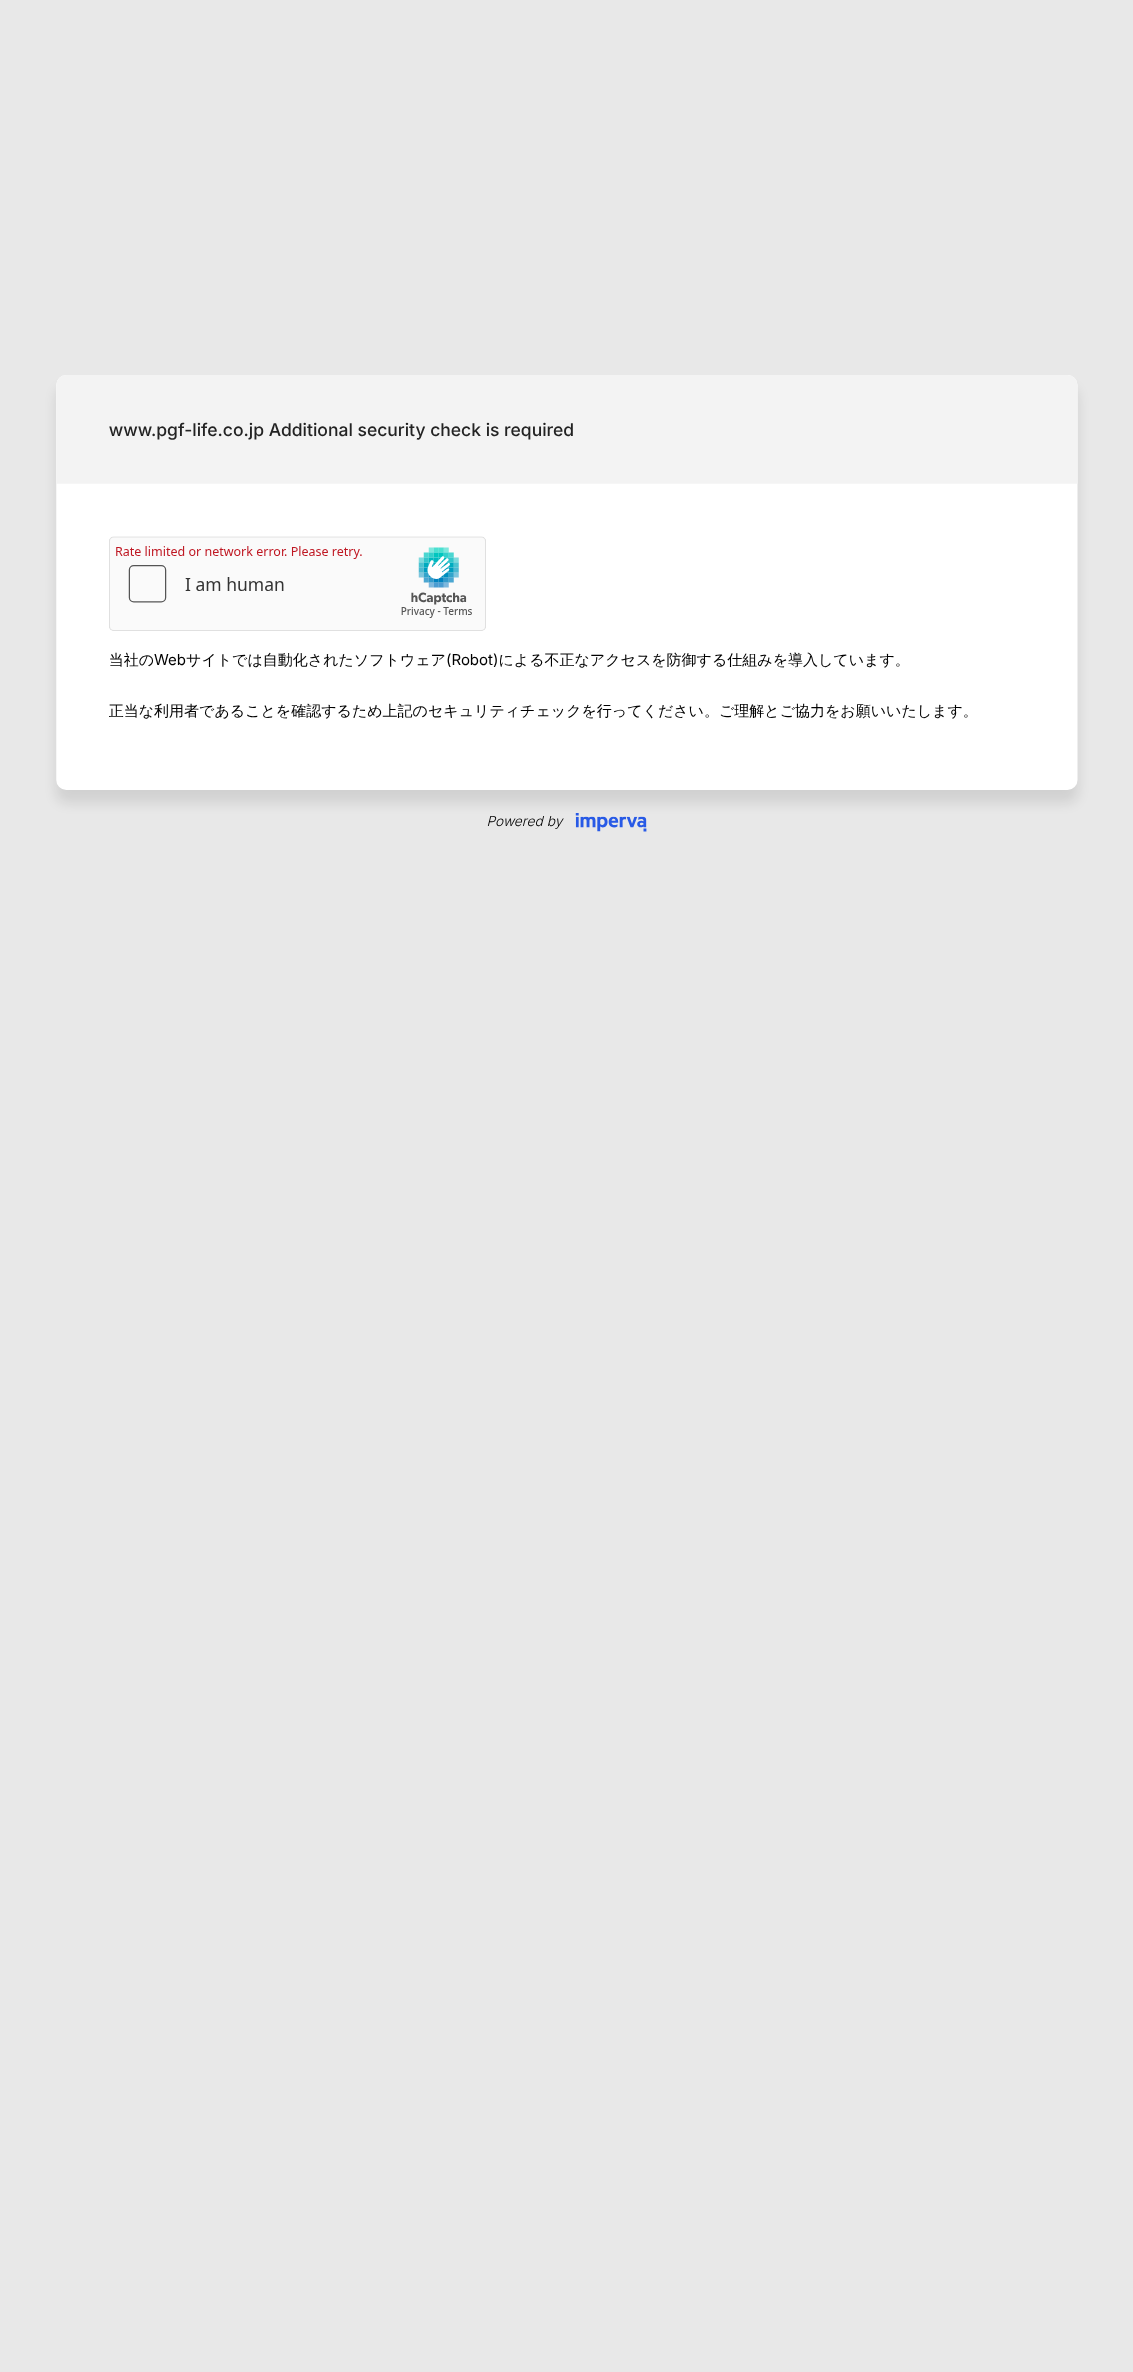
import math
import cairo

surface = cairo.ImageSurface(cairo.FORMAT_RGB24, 1133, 2372)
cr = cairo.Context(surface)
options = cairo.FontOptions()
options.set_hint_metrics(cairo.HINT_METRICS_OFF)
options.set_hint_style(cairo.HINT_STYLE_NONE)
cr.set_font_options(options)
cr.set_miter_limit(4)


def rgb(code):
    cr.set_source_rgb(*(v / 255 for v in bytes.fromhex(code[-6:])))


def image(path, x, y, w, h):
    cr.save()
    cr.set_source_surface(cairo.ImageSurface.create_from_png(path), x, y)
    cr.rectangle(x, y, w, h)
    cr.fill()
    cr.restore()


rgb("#ffffff")
cr.paint()
image("img/1.png", 0, 0, 1133, 2372)
surface.write_to_png("page.png")
